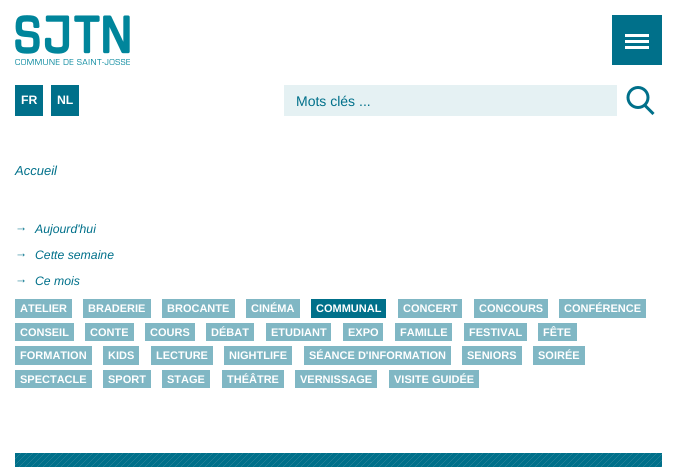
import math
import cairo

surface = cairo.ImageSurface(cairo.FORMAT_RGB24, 677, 467)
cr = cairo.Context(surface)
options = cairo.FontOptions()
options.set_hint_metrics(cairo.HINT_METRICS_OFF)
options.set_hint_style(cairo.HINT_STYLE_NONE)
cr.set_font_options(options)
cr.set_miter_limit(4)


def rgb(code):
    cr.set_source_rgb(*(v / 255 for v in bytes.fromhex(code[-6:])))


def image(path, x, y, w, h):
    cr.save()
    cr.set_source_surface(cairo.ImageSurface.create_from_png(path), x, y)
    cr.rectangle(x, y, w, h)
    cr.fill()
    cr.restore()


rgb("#ffffff")
cr.paint()
for x, y, w, h, color in [
    (612, 15, 50, 50, "#00708a"),
    (625, 40, 24, 3, "#ffffff"),
    (625, 34, 24, 3, "#ffffff"),
    (625, 46, 24, 3, "#ffffff"),
]:
    rgb(color)
    cr.rectangle(x, y, w, h)
    cr.fill()
image("img/1.png", 15, 15, 115, 50)
for x, y, w, h, color in [
    (15, 85, 28, 31, "#00708a"),
    (51, 85, 28, 31, "#00708a"),
    (284, 85, 333, 31, "#e5f1f3"),
]:
    rgb(color)
    cr.rectangle(x, y, w, h)
    cr.fill()
cr.arc(638, 97.5, 10, 0, 2 * math.pi)
rgb("#00708a")
cr.set_line_width(3)
cr.stroke()
cr.new_path()
cr.move_to(644.5, 105)
cr.line_to(653.5, 114)
cr.stroke()
for x, y, w, h, color in [
    (15, 299, 57, 19, "#80b7c4"),
    (83, 299, 68, 19, "#80b7c4"),
    (162, 299, 73, 19, "#80b7c4"),
    (246, 299, 54, 19, "#80b7c4"),
    (311, 299, 75, 19, "#00708a"),
    (398, 299, 64, 19, "#80b7c4"),
    (474, 299, 74, 19, "#80b7c4"),
    (559, 299, 87, 19, "#80b7c4"),
    (15, 323, 59, 18, "#80b7c4"),
    (85, 323, 49, 18, "#80b7c4"),
    (145, 323, 50, 18, "#80b7c4"),
    (206, 323, 48, 18, "#80b7c4"),
    (266, 323, 65, 18, "#80b7c4"),
    (343, 323, 40, 18, "#80b7c4"),
    (395, 323, 57, 18, "#80b7c4"),
    (464, 323, 63, 18, "#80b7c4"),
    (538, 323, 39, 18, "#80b7c4"),
    (15, 346, 77, 19, "#80b7c4"),
    (103, 346, 36, 19, "#80b7c4"),
    (151, 346, 62, 19, "#80b7c4"),
    (224, 346, 68, 19, "#80b7c4"),
    (304, 346, 147, 19, "#80b7c4"),
    (462, 346, 60, 19, "#80b7c4"),
    (533, 346, 52, 19, "#80b7c4"),
    (15, 370, 77, 18, "#80b7c4"),
    (103, 370, 48, 18, "#80b7c4"),
    (162, 370, 48, 18, "#80b7c4"),
    (222, 370, 62, 18, "#80b7c4"),
    (295, 370, 82, 18, "#80b7c4"),
    (389, 370, 90, 18, "#80b7c4"),
]:
    rgb(color)
    cr.rectangle(x, y, w, h)
    cr.fill()
image("img/2.png", 15, 453, 647, 14)
cr.select_font_face("Liberation Sans", cairo.FONT_SLANT_NORMAL, cairo.FONT_WEIGHT_BOLD)
cr.set_font_size(12.25)
rgb("#ffffff")
cr.move_to(21, 104)
cr.show_text("FR")
cr.move_to(57, 104)
cr.show_text("NL")
cr.select_font_face("Liberation Sans")
cr.set_font_size(14)
rgb("#00708a")
cr.move_to(296, 106)
cr.show_text("Mots clés ...")
cr.select_font_face("Liberation Sans", cairo.FONT_SLANT_ITALIC)
cr.set_font_size(13)
cr.move_to(15, 175)
cr.show_text("Accueil")
cr.set_font_size(12.25)
for x, y, s in [
    (15, 231, "→"),
    (35, 233, "Aujourd'hui"),
    (15, 257, "→"),
    (35, 259, "Cette semaine"),
    (15, 283, "→"),
    (35, 285, "Ce mois"),
]:
    cr.move_to(x, y)
    cr.show_text(s)
cr.select_font_face("Liberation Sans", cairo.FONT_SLANT_NORMAL, cairo.FONT_WEIGHT_BOLD)
cr.set_font_size(11)
rgb("#ffffff")
for x, y, s in [
    (20, 312, "ATELIER"),
    (88, 312, "BRADERIE"),
    (167, 312, "BROCANTE"),
    (251, 312, "CINÉMA"),
    (316, 312, "COMMUNAL"),
    (403, 312, "CONCERT"),
    (479, 312, "CONCOURS"),
    (564, 312, "CONFÉRENCE"),
    (20, 336, "CONSEIL"),
    (90, 336, "CONTE"),
    (150, 336, "COURS"),
    (211, 336, "DÉBAT"),
    (271, 336, "ETUDIANT"),
    (348, 336, "EXPO"),
    (400, 336, "FAMILLE"),
    (469, 336, "FESTIVAL"),
    (543, 336, "FÊTE"),
    (20, 359, "FORMATION"),
    (108, 359, "KIDS"),
    (156, 359, "LECTURE"),
    (229, 359, "NIGHTLIFE"),
    (309, 359, "SÉANCE D'INFORMATION"),
    (467, 359, "SENIORS"),
    (538, 359, "SOIRÉE"),
    (20, 383, "SPECTACLE"),
    (108, 383, "SPORT"),
    (167, 383, "STAGE"),
    (227, 383, "THÉÂTRE"),
    (300, 383, "VERNISSAGE"),
    (394, 383, "VISITE GUIDÉE"),
]:
    cr.move_to(x, y)
    cr.show_text(s)
surface.write_to_png("page.png")
